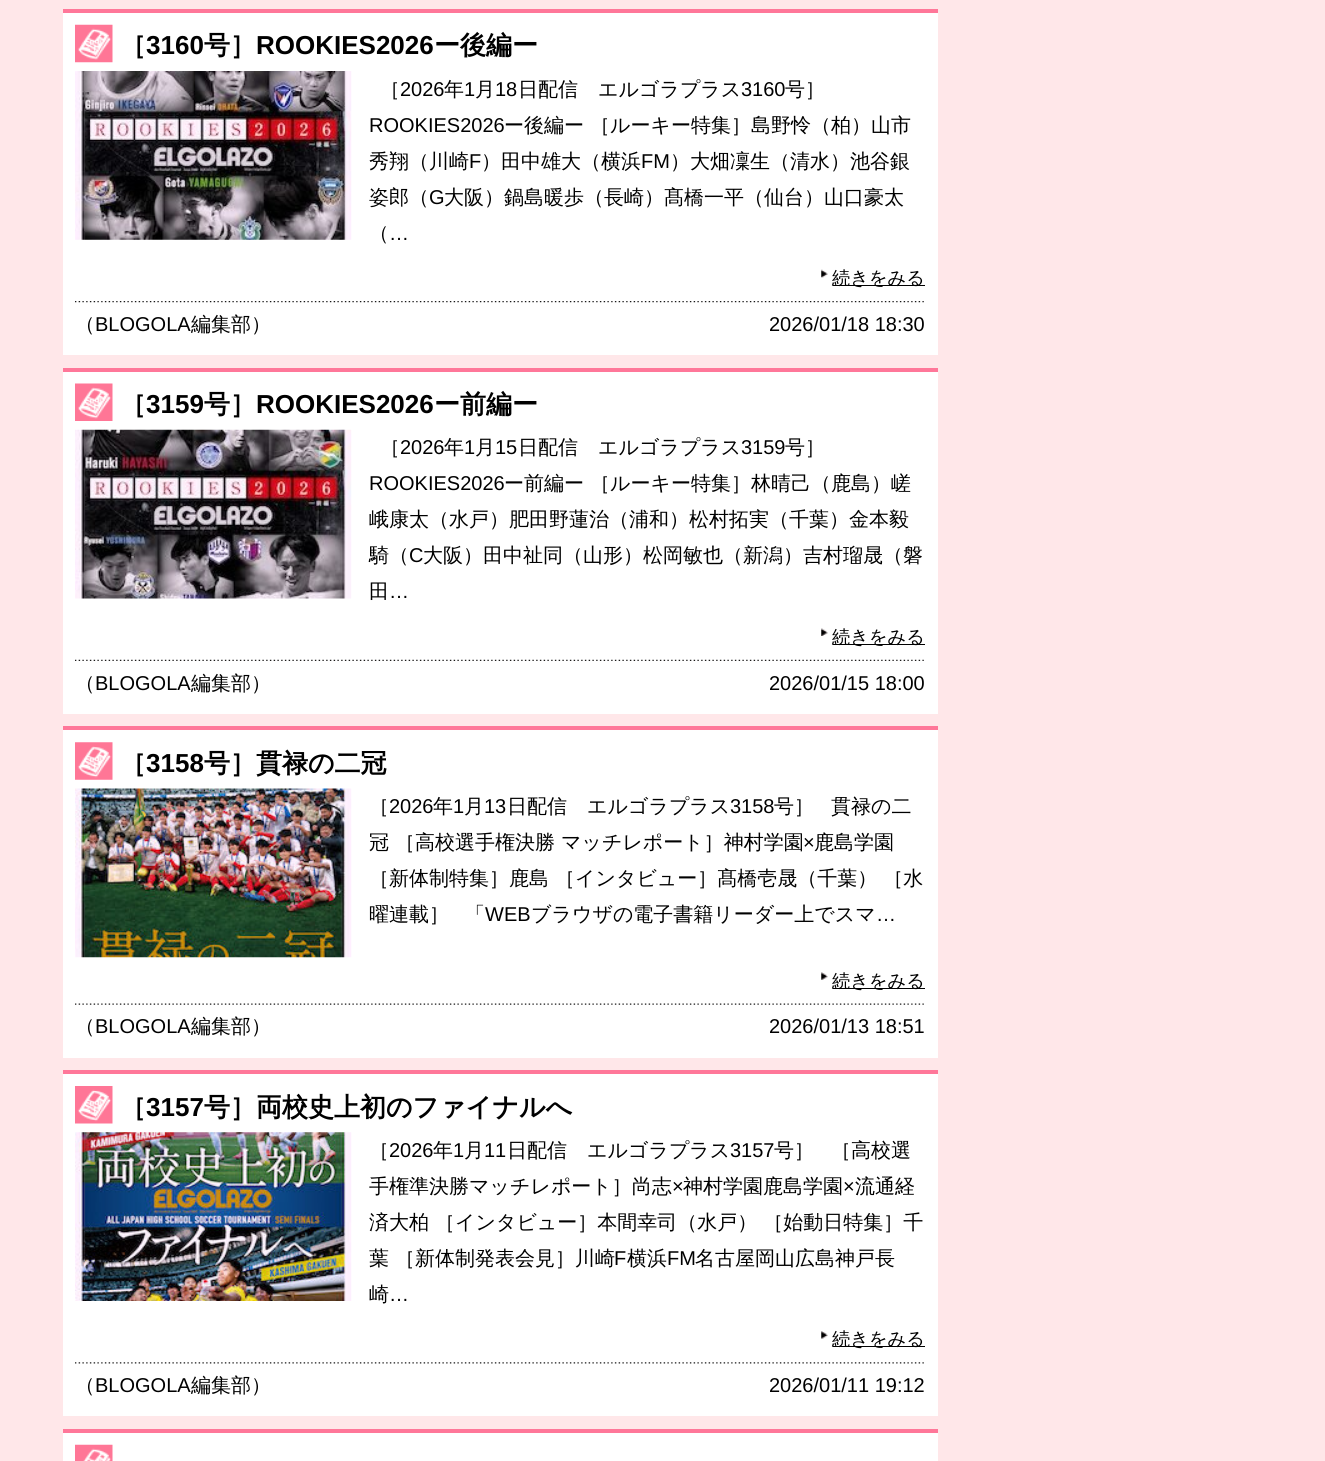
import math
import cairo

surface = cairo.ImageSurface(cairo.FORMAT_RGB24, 1325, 1461)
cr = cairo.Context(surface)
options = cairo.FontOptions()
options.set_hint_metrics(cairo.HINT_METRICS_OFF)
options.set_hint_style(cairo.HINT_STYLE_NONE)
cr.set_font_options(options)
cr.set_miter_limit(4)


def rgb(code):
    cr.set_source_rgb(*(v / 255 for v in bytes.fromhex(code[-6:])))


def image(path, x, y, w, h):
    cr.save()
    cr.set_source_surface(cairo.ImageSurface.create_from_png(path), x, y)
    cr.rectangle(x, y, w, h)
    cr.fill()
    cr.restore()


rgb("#ffe7e9")
cr.paint()
rgb("#ffffff")
cr.rectangle(63, 13, 875, 342)
cr.fill()
rgb("#ff7799")
cr.rectangle(63, 9, 875, 4)
cr.fill()
image("img/1.png", 75, 24, 38, 39)
image("img/2.png", 75, 71, 277, 169)
image("img/3.png", 821, 269, 7, 9)
rgb("#000000")
cr.rectangle(833, 285, 92, 1)
cr.fill()
image("img/4.png", 75, 301, 849, 2)
rgb("#ffffff")
cr.rectangle(63, 372, 875, 342)
cr.fill()
rgb("#ff7799")
cr.rectangle(63, 368, 875, 4)
cr.fill()
image("img/5.png", 75, 383, 38, 38)
image("img/6.png", 75, 429, 277, 170)
image("img/7.png", 821, 628, 7, 8)
rgb("#000000")
cr.rectangle(833, 644, 92, 1)
cr.fill()
image("img/8.png", 75, 659, 849, 2)
rgb("#ffffff")
cr.rectangle(63, 730, 875, 328)
cr.fill()
rgb("#ff7799")
cr.rectangle(63, 726, 875, 4)
cr.fill()
image("img/9.png", 75, 742, 38, 38)
image("img/10.png", 75, 788, 277, 170)
image("img/11.png", 821, 972, 7, 8)
rgb("#000000")
cr.rectangle(833, 988, 92, 1)
cr.fill()
image("img/12.png", 75, 1003, 849, 2)
rgb("#ffffff")
cr.rectangle(63, 1074, 875, 342)
cr.fill()
rgb("#ff7799")
cr.rectangle(63, 1070, 875, 4)
cr.fill()
image("img/13.png", 75, 1086, 38, 38)
image("img/14.png", 75, 1132, 277, 169)
image("img/15.png", 821, 1331, 7, 8)
rgb("#000000")
cr.rectangle(833, 1346, 92, 1)
cr.fill()
image("img/16.png", 75, 1362, 849, 2)
rgb("#ffffff")
cr.rectangle(63, 1433, 875, 28)
cr.fill()
rgb("#ff7799")
cr.rectangle(63, 1429, 875, 4)
cr.fill()
image("img/17.png", 75, 1444, 38, 17)
cr.select_font_face("WenQuanYi Zen Hei", cairo.FONT_SLANT_NORMAL, cairo.FONT_WEIGHT_BOLD)
cr.set_font_size(26)
rgb("#000000")
cr.move_to(120, 54)
cr.show_text("［")
cr.select_font_face("Liberation Sans", cairo.FONT_SLANT_NORMAL, cairo.FONT_WEIGHT_BOLD)
cr.move_to(146, 54)
cr.show_text("3160")
cr.select_font_face("WenQuanYi Zen Hei", cairo.FONT_SLANT_NORMAL, cairo.FONT_WEIGHT_BOLD)
cr.move_to(204, 54)
cr.show_text("号］")
cr.select_font_face("Liberation Sans", cairo.FONT_SLANT_NORMAL, cairo.FONT_WEIGHT_BOLD)
cr.move_to(256, 54)
cr.show_text("ROOKIES2026")
cr.select_font_face("WenQuanYi Zen Hei", cairo.FONT_SLANT_NORMAL, cairo.FONT_WEIGHT_BOLD)
cr.move_to(434, 54)
cr.show_text("ー後編ー")
cr.select_font_face("WenQuanYi Zen Hei Medium")
cr.set_font_size(20)
cr.move_to(380, 96)
cr.show_text("［")
cr.select_font_face("Liberation Sans")
cr.move_to(400, 96)
cr.show_text("2026")
cr.select_font_face("WenQuanYi Zen Hei Medium")
cr.move_to(444, 96)
cr.show_text("年")
cr.select_font_face("Liberation Sans")
cr.move_to(464, 96)
cr.show_text("1")
cr.select_font_face("WenQuanYi Zen Hei Medium")
cr.move_to(475, 96)
cr.show_text("月")
cr.select_font_face("Liberation Sans")
cr.move_to(495, 96)
cr.show_text("18")
cr.select_font_face("WenQuanYi Zen Hei Medium")
cr.move_to(518, 96)
cr.show_text("日配信　エルゴラプラス")
cr.select_font_face("Liberation Sans")
cr.move_to(741, 96)
cr.show_text("3160")
cr.select_font_face("WenQuanYi Zen Hei Medium")
cr.move_to(785, 96)
cr.show_text("号］")
cr.select_font_face("Liberation Sans")
cr.move_to(369, 132)
cr.show_text("ROOKIES2026")
cr.select_font_face("WenQuanYi Zen Hei Medium")
cr.move_to(504, 132)
cr.show_text("ー後編ー ［ルーキー特集］島野怜（柏）山市")
cr.move_to(369, 168)
cr.show_text("秀翔（川崎")
cr.select_font_face("Liberation Sans")
cr.move_to(469, 168)
cr.show_text("F")
cr.select_font_face("WenQuanYi Zen Hei Medium")
cr.move_to(481, 168)
cr.show_text("）田中雄大（横浜")
cr.select_font_face("Liberation Sans")
cr.move_to(641, 168)
cr.show_text("FM")
cr.select_font_face("WenQuanYi Zen Hei Medium")
cr.move_to(670, 168)
cr.show_text("）大畑凜生（清水）池谷銀")
cr.move_to(369, 204)
cr.show_text("姿郎（")
cr.select_font_face("Liberation Sans")
cr.move_to(429, 204)
cr.show_text("G")
cr.select_font_face("WenQuanYi Zen Hei Medium")
cr.move_to(444, 204)
cr.show_text("大阪）鍋島暖歩（長崎）髙橋一平（仙台）山口豪太")
cr.move_to(369, 240)
cr.show_text("（")
cr.select_font_face("Liberation Sans")
cr.move_to(389, 240)
cr.show_text("…")
cr.select_font_face("WenQuanYi Zen Hei Medium")
cr.set_font_size(18.25)
cr.move_to(832, 284)
cr.show_text("続きをみる")
cr.set_font_size(20)
cr.move_to(75, 331)
cr.show_text("（")
cr.select_font_face("Liberation Sans")
cr.move_to(95, 331)
cr.show_text("BLOGOLA")
cr.select_font_face("WenQuanYi Zen Hei Medium")
cr.move_to(191, 331)
cr.show_text("編集部）")
cr.select_font_face("Liberation Sans")
cr.move_to(769, 331)
cr.show_text("2026/01/18 18:30")
cr.select_font_face("WenQuanYi Zen Hei", cairo.FONT_SLANT_NORMAL, cairo.FONT_WEIGHT_BOLD)
cr.set_font_size(26)
cr.move_to(120, 413)
cr.show_text("［")
cr.select_font_face("Liberation Sans", cairo.FONT_SLANT_NORMAL, cairo.FONT_WEIGHT_BOLD)
cr.move_to(146, 413)
cr.show_text("3159")
cr.select_font_face("WenQuanYi Zen Hei", cairo.FONT_SLANT_NORMAL, cairo.FONT_WEIGHT_BOLD)
cr.move_to(204, 413)
cr.show_text("号］")
cr.select_font_face("Liberation Sans", cairo.FONT_SLANT_NORMAL, cairo.FONT_WEIGHT_BOLD)
cr.move_to(256, 413)
cr.show_text("ROOKIES2026")
cr.select_font_face("WenQuanYi Zen Hei", cairo.FONT_SLANT_NORMAL, cairo.FONT_WEIGHT_BOLD)
cr.move_to(434, 413)
cr.show_text("ー前編ー")
cr.select_font_face("WenQuanYi Zen Hei Medium")
cr.set_font_size(20)
cr.move_to(380, 454)
cr.show_text("［")
cr.select_font_face("Liberation Sans")
cr.move_to(400, 454)
cr.show_text("2026")
cr.select_font_face("WenQuanYi Zen Hei Medium")
cr.move_to(444, 454)
cr.show_text("年")
cr.select_font_face("Liberation Sans")
cr.move_to(464, 454)
cr.show_text("1")
cr.select_font_face("WenQuanYi Zen Hei Medium")
cr.move_to(475, 454)
cr.show_text("月")
cr.select_font_face("Liberation Sans")
cr.move_to(495, 454)
cr.show_text("15")
cr.select_font_face("WenQuanYi Zen Hei Medium")
cr.move_to(518, 454)
cr.show_text("日配信　エルゴラプラス")
cr.select_font_face("Liberation Sans")
cr.move_to(741, 454)
cr.show_text("3159")
cr.select_font_face("WenQuanYi Zen Hei Medium")
cr.move_to(785, 454)
cr.show_text("号］")
cr.select_font_face("Liberation Sans")
cr.move_to(369, 490)
cr.show_text("ROOKIES2026")
cr.select_font_face("WenQuanYi Zen Hei Medium")
for x, y, s in [
    (504, 490, "ー前編ー ［ルーキー特集］林晴己（鹿島）嵯"),
    (369, 526, "峨康太（水戸）肥田野蓮治（浦和）松村拓実（千葉）金本毅"),
    (369, 562, "騎（"),
]:
    cr.move_to(x, y)
    cr.show_text(s)
cr.select_font_face("Liberation Sans")
cr.move_to(409, 562)
cr.show_text("C")
cr.select_font_face("WenQuanYi Zen Hei Medium")
cr.move_to(423, 562)
cr.show_text("大阪）田中祉同（山形）松岡敏也（新潟）吉村瑠晟（磐")
cr.move_to(369, 598)
cr.show_text("田")
cr.select_font_face("Liberation Sans")
cr.move_to(389, 598)
cr.show_text("…")
cr.select_font_face("WenQuanYi Zen Hei Medium")
cr.set_font_size(18.25)
cr.move_to(832, 643)
cr.show_text("続きをみる")
cr.set_font_size(20)
cr.move_to(75, 690)
cr.show_text("（")
cr.select_font_face("Liberation Sans")
cr.move_to(95, 690)
cr.show_text("BLOGOLA")
cr.select_font_face("WenQuanYi Zen Hei Medium")
cr.move_to(191, 690)
cr.show_text("編集部）")
cr.select_font_face("Liberation Sans")
cr.move_to(769, 690)
cr.show_text("2026/01/15 18:00")
cr.select_font_face("WenQuanYi Zen Hei", cairo.FONT_SLANT_NORMAL, cairo.FONT_WEIGHT_BOLD)
cr.set_font_size(26)
cr.move_to(120, 772)
cr.show_text("［")
cr.select_font_face("Liberation Sans", cairo.FONT_SLANT_NORMAL, cairo.FONT_WEIGHT_BOLD)
cr.move_to(146, 772)
cr.show_text("3158")
cr.select_font_face("WenQuanYi Zen Hei", cairo.FONT_SLANT_NORMAL, cairo.FONT_WEIGHT_BOLD)
cr.move_to(204, 772)
cr.show_text("号］貫禄の二冠")
cr.select_font_face("WenQuanYi Zen Hei Medium")
cr.set_font_size(20)
cr.move_to(369, 813)
cr.show_text("［")
cr.select_font_face("Liberation Sans")
cr.move_to(389, 813)
cr.show_text("2026")
cr.select_font_face("WenQuanYi Zen Hei Medium")
cr.move_to(433, 813)
cr.show_text("年")
cr.select_font_face("Liberation Sans")
cr.move_to(453, 813)
cr.show_text("1")
cr.select_font_face("WenQuanYi Zen Hei Medium")
cr.move_to(464, 813)
cr.show_text("月")
cr.select_font_face("Liberation Sans")
cr.move_to(484, 813)
cr.show_text("13")
cr.select_font_face("WenQuanYi Zen Hei Medium")
cr.move_to(507, 813)
cr.show_text("日配信　エルゴラプラス")
cr.select_font_face("Liberation Sans")
cr.move_to(730, 813)
cr.show_text("3158")
cr.select_font_face("WenQuanYi Zen Hei Medium")
for x, y, s in [
    (774, 813, "号］"),
    (831, 813, "貫禄の二"),
    (369, 849, "冠 ［高校選手権決勝 マッチレポート］神村学園"),
]:
    cr.move_to(x, y)
    cr.show_text(s)
cr.select_font_face("Liberation Sans")
cr.move_to(803, 849)
cr.show_text("×")
cr.select_font_face("WenQuanYi Zen Hei Medium")
for x, y, s in [
    (814, 849, "鹿島学園"),
    (369, 885, "［新体制特集］鹿島 ［インタビュー］髙橋壱晟（千葉） ［水"),
    (369, 921, "曜連載］"),
    (465, 921, "「"),
]:
    cr.move_to(x, y)
    cr.show_text(s)
cr.select_font_face("Liberation Sans")
cr.move_to(485, 921)
cr.show_text("WEB")
cr.select_font_face("WenQuanYi Zen Hei Medium")
cr.move_to(531, 921)
cr.show_text("ブラウザの電子書籍リーダー上でスマ")
cr.select_font_face("Liberation Sans")
cr.move_to(876, 921)
cr.show_text("…")
cr.select_font_face("WenQuanYi Zen Hei Medium")
cr.set_font_size(18.25)
cr.move_to(832, 987)
cr.show_text("続きをみる")
cr.set_font_size(20)
cr.move_to(75, 1033)
cr.show_text("（")
cr.select_font_face("Liberation Sans")
cr.move_to(95, 1033)
cr.show_text("BLOGOLA")
cr.select_font_face("WenQuanYi Zen Hei Medium")
cr.move_to(191, 1033)
cr.show_text("編集部）")
cr.select_font_face("Liberation Sans")
cr.move_to(769, 1033)
cr.show_text("2026/01/13 18:51")
cr.select_font_face("WenQuanYi Zen Hei", cairo.FONT_SLANT_NORMAL, cairo.FONT_WEIGHT_BOLD)
cr.set_font_size(26)
cr.move_to(120, 1116)
cr.show_text("［")
cr.select_font_face("Liberation Sans", cairo.FONT_SLANT_NORMAL, cairo.FONT_WEIGHT_BOLD)
cr.move_to(146, 1116)
cr.show_text("3157")
cr.select_font_face("WenQuanYi Zen Hei", cairo.FONT_SLANT_NORMAL, cairo.FONT_WEIGHT_BOLD)
cr.move_to(204, 1116)
cr.show_text("号］両校史上初のファイナルへ")
cr.select_font_face("WenQuanYi Zen Hei Medium")
cr.set_font_size(20)
cr.move_to(369, 1157)
cr.show_text("［")
cr.select_font_face("Liberation Sans")
cr.move_to(389, 1157)
cr.show_text("2026")
cr.select_font_face("WenQuanYi Zen Hei Medium")
cr.move_to(433, 1157)
cr.show_text("年")
cr.select_font_face("Liberation Sans")
cr.move_to(453, 1157)
cr.show_text("1")
cr.select_font_face("WenQuanYi Zen Hei Medium")
cr.move_to(464, 1157)
cr.show_text("月")
cr.select_font_face("Liberation Sans")
cr.move_to(484, 1157)
cr.show_text("11")
cr.select_font_face("WenQuanYi Zen Hei Medium")
cr.move_to(507, 1157)
cr.show_text("日配信　エルゴラプラス")
cr.select_font_face("Liberation Sans")
cr.move_to(730, 1157)
cr.show_text("3157")
cr.select_font_face("WenQuanYi Zen Hei Medium")
for x, y, s in [
    (774, 1157, "号］"),
    (831, 1157, "［高校選"),
    (369, 1193, "手権準決勝マッチレポート］尚志"),
]:
    cr.move_to(x, y)
    cr.show_text(s)
cr.select_font_face("Liberation Sans")
cr.move_to(672, 1193)
cr.show_text("×")
cr.select_font_face("WenQuanYi Zen Hei Medium")
cr.move_to(683, 1193)
cr.show_text("神村学園鹿島学園")
cr.select_font_face("Liberation Sans")
cr.move_to(843, 1193)
cr.show_text("×")
cr.select_font_face("WenQuanYi Zen Hei Medium")
for x, y, s in [
    (855, 1193, "流通経"),
    (369, 1229, "済大柏 ［インタビュー］本間幸司（水戸） ［始動日特集］千"),
    (369, 1265, "葉 ［新体制発表会見］川崎"),
]:
    cr.move_to(x, y)
    cr.show_text(s)
cr.select_font_face("Liberation Sans")
cr.move_to(614, 1265)
cr.show_text("F")
cr.select_font_face("WenQuanYi Zen Hei Medium")
cr.move_to(627, 1265)
cr.show_text("横浜")
cr.select_font_face("Liberation Sans")
cr.move_to(667, 1265)
cr.show_text("FM")
cr.select_font_face("WenQuanYi Zen Hei Medium")
cr.move_to(695, 1265)
cr.show_text("名古屋岡山広島神戸長")
cr.move_to(369, 1301)
cr.show_text("崎")
cr.select_font_face("Liberation Sans")
cr.move_to(389, 1301)
cr.show_text("…")
cr.select_font_face("WenQuanYi Zen Hei Medium")
cr.set_font_size(18.25)
cr.move_to(832, 1345)
cr.show_text("続きをみる")
cr.set_font_size(20)
cr.move_to(75, 1392)
cr.show_text("（")
cr.select_font_face("Liberation Sans")
cr.move_to(95, 1392)
cr.show_text("BLOGOLA")
cr.select_font_face("WenQuanYi Zen Hei Medium")
cr.move_to(191, 1392)
cr.show_text("編集部）")
cr.select_font_face("Liberation Sans")
cr.move_to(769, 1392)
cr.show_text("2026/01/11 19:12")
surface.write_to_png("page.png")
